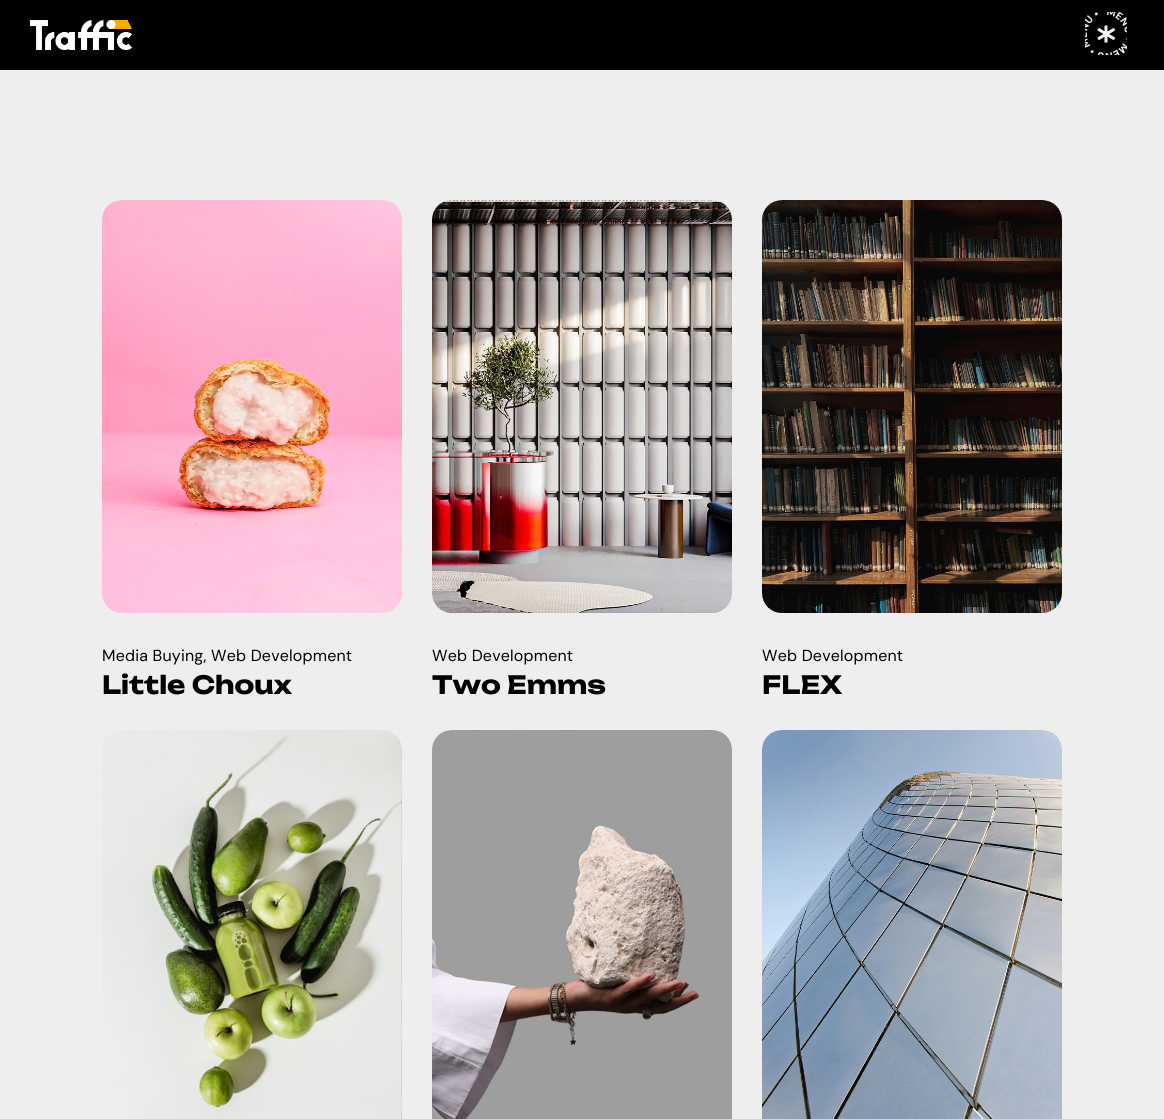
import math
import cairo

surface = cairo.ImageSurface(cairo.FORMAT_RGB24, 1164, 1119)
cr = cairo.Context(surface)
options = cairo.FontOptions()
options.set_hint_metrics(cairo.HINT_METRICS_OFF)
options.set_hint_style(cairo.HINT_STYLE_NONE)
cr.set_font_options(options)
cr.set_miter_limit(4)


def rgb(code):
    cr.set_source_rgb(*(v / 255 for v in bytes.fromhex(code[-6:])))


def tracked(x, y, s, letter, word):
    cr.move_to(x, y)
    for ch in s:
        cr.show_text(ch)
        cr.rel_move_to(letter + word * (ch == ' '), 0)


def image(path, x, y, w, h):
    cr.save()
    cr.set_source_surface(cairo.ImageSurface.create_from_png(path), x, y)
    cr.rectangle(x, y, w, h)
    cr.fill()
    cr.restore()


rgb("#eeeeee")
cr.paint()
rgb("#000000")
cr.rectangle(0, 0, 1164, 70)
cr.fill()
image("img/1.png", 30, 20, 102, 30)
image("img/2.png", 1085, 12, 42, 43)
cr.new_path()
cr.move_to(1106, 25.5)
cr.line_to(1106, 42.5)
cr.move_to(1098, 29)
cr.line_to(1114.5, 39)
cr.move_to(1098, 39)
cr.line_to(1114.5, 29)
rgb("#f2f2f2")
cr.set_line_width(3)
cr.stroke()
image("img/3.png", 102, 200, 300, 413)
image("img/4.png", 432, 200, 300, 413)
image("img/5.png", 762, 200, 300, 413)
image("img/6.png", 102, 730, 300, 389)
image("img/7.png", 432, 730, 300, 389)
image("img/8.png", 762, 730, 300, 389)
cr.select_font_face("DM Sans")
cr.set_font_size(16)
rgb("#000000")
tracked(102, 661, "Media Buying,", 0.2, 0)
tracked(211, 661, "Web Development", 0.2, 0)
cr.select_font_face("Unbounded", cairo.FONT_SLANT_NORMAL, cairo.FONT_WEIGHT_BOLD)
cr.set_font_size(25)
cr.move_to(102, 694)
cr.show_text("Little Choux")
cr.select_font_face("DM Sans")
cr.set_font_size(16)
tracked(432, 661, "Web Development", 0.2, 0)
cr.select_font_face("Unbounded", cairo.FONT_SLANT_NORMAL, cairo.FONT_WEIGHT_BOLD)
cr.set_font_size(25)
cr.move_to(432, 694)
cr.show_text("Two Emms")
cr.select_font_face("DM Sans")
cr.set_font_size(16)
tracked(762, 661, "Web Development", 0.2, 0)
cr.select_font_face("Unbounded", cairo.FONT_SLANT_NORMAL, cairo.FONT_WEIGHT_BOLD)
cr.set_font_size(25)
cr.move_to(762, 694)
cr.show_text("FLEX")
surface.write_to_png("page.png")
